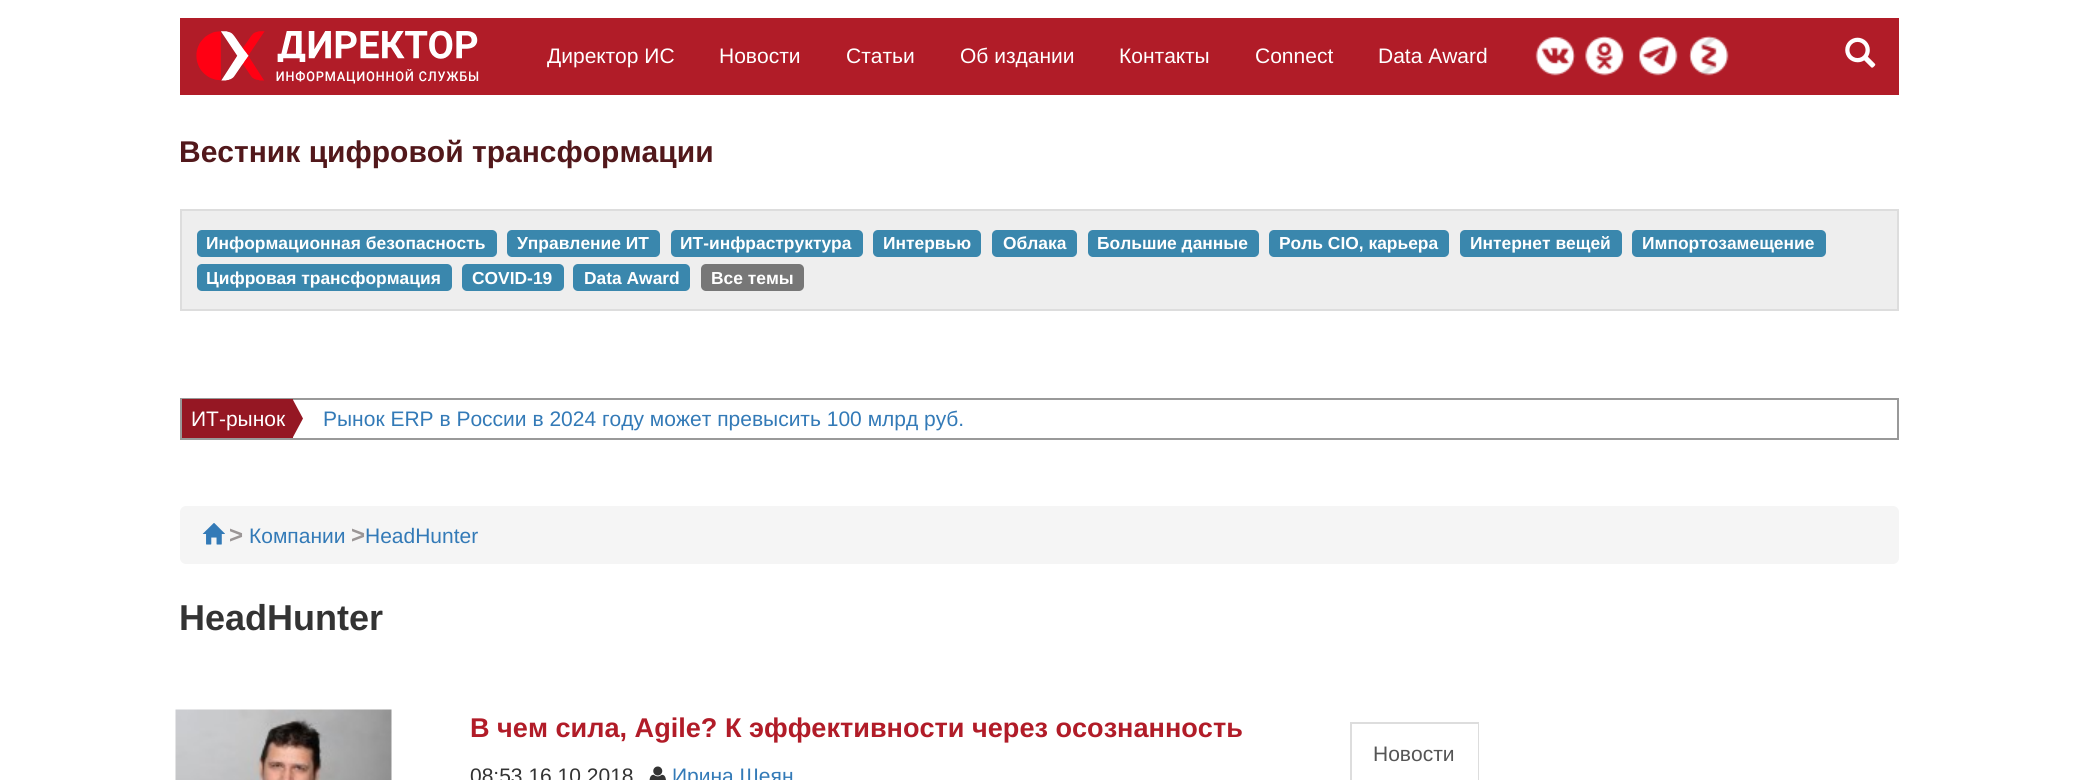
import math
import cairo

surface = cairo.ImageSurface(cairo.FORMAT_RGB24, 2077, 780)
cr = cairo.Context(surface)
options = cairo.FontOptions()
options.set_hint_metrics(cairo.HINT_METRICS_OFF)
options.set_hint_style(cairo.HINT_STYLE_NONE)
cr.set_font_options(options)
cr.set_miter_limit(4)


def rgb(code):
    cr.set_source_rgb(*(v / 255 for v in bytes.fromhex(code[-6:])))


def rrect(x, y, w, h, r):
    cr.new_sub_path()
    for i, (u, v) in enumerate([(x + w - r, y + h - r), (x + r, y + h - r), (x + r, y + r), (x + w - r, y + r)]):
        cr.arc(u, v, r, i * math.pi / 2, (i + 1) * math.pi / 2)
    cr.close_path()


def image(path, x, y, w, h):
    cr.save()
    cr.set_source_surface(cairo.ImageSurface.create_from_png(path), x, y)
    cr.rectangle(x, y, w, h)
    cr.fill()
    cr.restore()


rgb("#ffffff")
cr.paint()
rgb("#b11c28")
cr.rectangle(180, 18, 1719, 77)
cr.fill()
image("img/1.png", 196, 30, 283, 54)
image("img/2.png", 1535, 36, 41, 40)
image("img/3.png", 1585, 35, 39, 41)
image("img/4.png", 1639, 36, 39, 40)
image("img/5.png", 1689, 35, 40, 41)
image("img/6.png", 1845, 37, 31, 31)
rgb("#eeeeee")
cr.rectangle(181, 210, 1717, 100)
cr.fill_preserve()
rgb("#dddddd")
cr.stroke()
rgb("#3a87ad")
rrect(197, 230, 300, 27, 5)
cr.fill()
rrect(507, 230, 153, 27, 5)
cr.fill()
rrect(671, 230, 192, 27, 5)
cr.fill()
rrect(873, 230, 108, 27, 5)
cr.fill()
rrect(992, 230, 85, 27, 5)
cr.fill()
rrect(1088, 230, 171, 27, 5)
cr.fill()
rrect(1269, 230, 180, 27, 5)
cr.fill()
rrect(1460, 230, 162, 27, 5)
cr.fill()
rrect(1632, 230, 194, 27, 5)
cr.fill()
rrect(197, 264, 255, 27, 5)
cr.fill()
rrect(462, 264, 102, 27, 5)
cr.fill()
rrect(573, 264, 117, 27, 5)
cr.fill()
rgb("#777777")
rrect(701, 264, 103, 27, 5)
cr.fill()
cr.rectangle(181, 399, 1717, 40)
rgb("#999999")
cr.stroke()
rgb("#951723")
cr.rectangle(182, 399, 111, 39)
cr.fill()
cr.new_path()
cr.move_to(292.5, 438)
cr.line_to(292.5, 399)
cr.line_to(303, 418.5)
cr.close_path()
cr.fill()
rgb("#f5f5f5")
rrect(180, 506, 1719, 58, 6)
cr.fill()
image("img/7.png", 202, 523, 23, 22)
image("img/8.png", 175, 709, 217, 71)
image("img/9.png", 649, 766, 17, 14)
rgb("#dddddd")
cr.rectangle(1350, 722, 129, 2)
cr.fill()
cr.new_path()
cr.move_to(1479, 722)
cr.line_to(1479, 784)
cr.line_to(1478, 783)
cr.line_to(1478, 723)
cr.close_path()
cr.fill()
cr.new_path()
cr.move_to(1350, 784)
cr.line_to(1350, 722)
cr.line_to(1352, 723)
cr.line_to(1352, 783)
cr.close_path()
cr.fill()
cr.select_font_face("Liberation Sans")
cr.set_font_size(21)
rgb("#ffffff")
for x, y, s in [
    (547, 63, "Директор ИС"),
    (719, 63, "Новости"),
    (846, 63, "Статьи"),
    (960, 63, "Об издании"),
    (1119, 63, "Контакты"),
    (1255, 63, "Connect"),
    (1378, 63, "Data Award"),
]:
    cr.move_to(x, y)
    cr.show_text(s)
cr.select_font_face("Liberation Sans", cairo.FONT_SLANT_NORMAL, cairo.FONT_WEIGHT_BOLD)
cr.set_font_size(30)
rgb("#52181b")
cr.move_to(179, 162)
cr.show_text("Вестник цифровой трансформации")
cr.set_font_size(17.4)
rgb("#ffffff")
for x, y, s in [
    (206, 249, "Информационная безопасность"),
    (517, 249, "Управление ИТ"),
    (680, 249, "ИТ-инфраструктура"),
    (883, 249, "Интервью"),
    (1003, 249, "Облака"),
    (1097, 249, "Большие данные"),
    (1279, 249, "Роль CIO, карьера"),
    (1470, 249, "Интернет вещей"),
    (1642, 249, "Импортозамещение"),
    (206, 284, "Цифровая трансформация"),
    (472, 284, "COVID-19"),
    (584, 284, "Data Award"),
    (711, 284, "Все темы"),
]:
    cr.move_to(x, y)
    cr.show_text(s)
cr.select_font_face("Liberation Sans")
cr.set_font_size(21)
cr.move_to(191, 426)
cr.show_text("ИТ-рынок")
rgb("#337ab7")
cr.move_to(323, 426)
cr.show_text("Рынок ERP в России в 2024 году может превысить 100 млрд руб.")
cr.select_font_face("Liberation Sans", cairo.FONT_SLANT_NORMAL, cairo.FONT_WEIGHT_BOLD)
cr.set_font_size(24)
rgb("#9b9696")
cr.move_to(229, 543)
cr.show_text(">")
cr.select_font_face("Liberation Sans")
cr.set_font_size(21)
rgb("#337ab7")
cr.move_to(249, 543)
cr.show_text("Компании")
cr.select_font_face("Liberation Sans", cairo.FONT_SLANT_NORMAL, cairo.FONT_WEIGHT_BOLD)
cr.set_font_size(24)
rgb("#9b9696")
cr.move_to(351, 543)
cr.show_text(">")
cr.select_font_face("Liberation Sans")
cr.set_font_size(21)
rgb("#337ab7")
cr.move_to(365, 543)
cr.show_text("HeadHunter")
cr.select_font_face("Liberation Sans", cairo.FONT_SLANT_NORMAL, cairo.FONT_WEIGHT_BOLD)
cr.set_font_size(36)
rgb("#333333")
cr.move_to(179, 630)
cr.show_text("HeadHunter")
cr.set_font_size(27.1)
rgb("#b11c28")
cr.move_to(470, 737)
cr.show_text("В чем сила, Agile? К эффективности через осознанность")
cr.select_font_face("Liberation Sans")
cr.set_font_size(21)
rgb("#333333")
cr.move_to(470, 783)
cr.show_text("08:53 16.10.2018")
rgb("#337ab7")
cr.move_to(672, 783)
cr.show_text("Ирина Шеян")
rgb("#555555")
cr.move_to(1373, 761)
cr.show_text("Новости")
surface.write_to_png("page.png")
